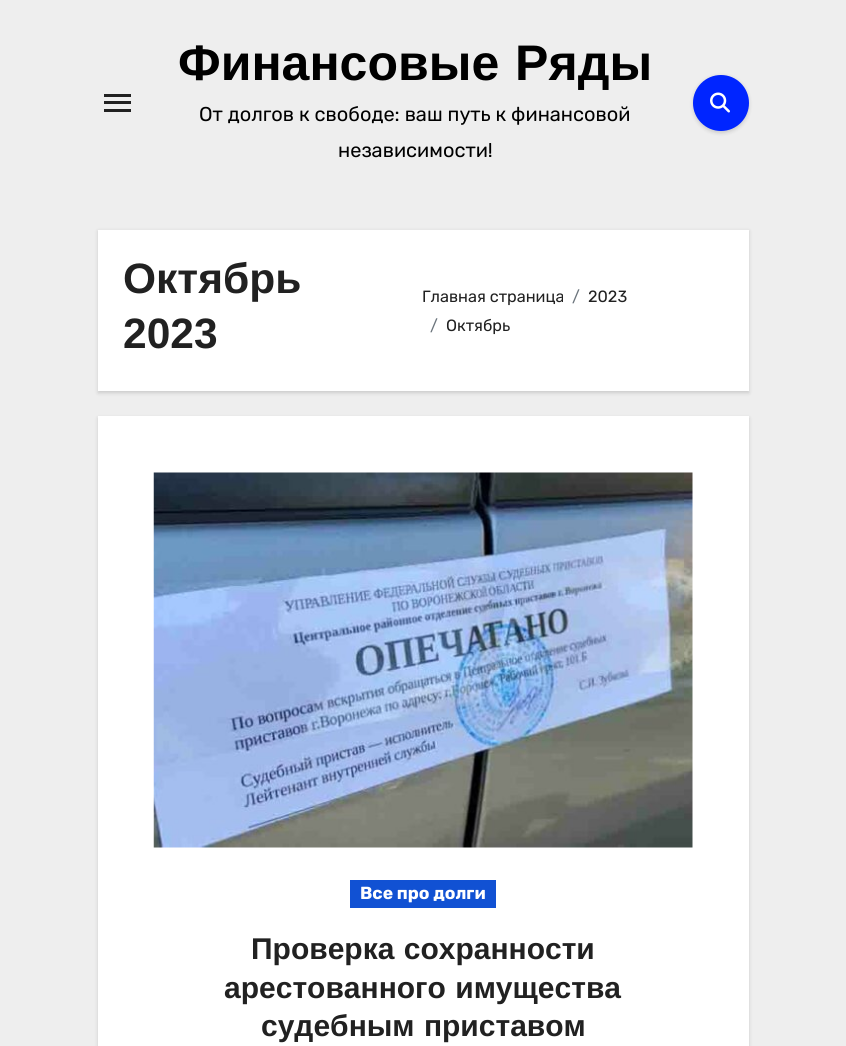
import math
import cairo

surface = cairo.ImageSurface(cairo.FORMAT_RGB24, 846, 1046)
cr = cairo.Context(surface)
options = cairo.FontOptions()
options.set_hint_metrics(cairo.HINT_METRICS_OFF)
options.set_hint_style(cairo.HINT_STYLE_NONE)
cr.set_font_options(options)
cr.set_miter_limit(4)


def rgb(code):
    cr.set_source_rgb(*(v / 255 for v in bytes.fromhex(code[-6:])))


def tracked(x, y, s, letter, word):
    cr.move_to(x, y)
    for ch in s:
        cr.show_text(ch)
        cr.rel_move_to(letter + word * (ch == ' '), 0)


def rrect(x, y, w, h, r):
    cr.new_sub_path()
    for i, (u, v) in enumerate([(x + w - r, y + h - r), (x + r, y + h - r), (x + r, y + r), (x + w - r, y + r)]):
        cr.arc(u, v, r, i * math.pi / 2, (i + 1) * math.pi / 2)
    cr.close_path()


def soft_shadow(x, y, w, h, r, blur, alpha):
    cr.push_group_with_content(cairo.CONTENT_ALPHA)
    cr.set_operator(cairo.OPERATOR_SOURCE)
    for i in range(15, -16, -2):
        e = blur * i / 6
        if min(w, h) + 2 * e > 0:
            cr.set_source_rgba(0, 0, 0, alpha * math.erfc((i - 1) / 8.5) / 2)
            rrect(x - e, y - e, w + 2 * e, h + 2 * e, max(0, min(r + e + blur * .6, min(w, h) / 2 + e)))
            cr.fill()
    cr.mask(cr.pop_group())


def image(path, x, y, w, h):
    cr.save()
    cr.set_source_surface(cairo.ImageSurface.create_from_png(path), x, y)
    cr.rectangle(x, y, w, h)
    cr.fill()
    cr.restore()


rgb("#eeeeee")
cr.paint()
for x, y, w, h, color in [
    (104, 94, 27, 3, "#212121"),
    (104, 101, 27, 3, "#212121"),
    (104, 109, 27, 3, "#212121"),
]:
    rgb(color)
    cr.rectangle(x, y, w, h)
    cr.fill()
rgb("#000000")
soft_shadow(693, 76, 56, 57, 28, 2, 0.15)
rgb("#0025ff")
cr.arc(721, 103, 28, 0, 2 * math.pi)
cr.fill()
image("img/1.png", 710, 92, 20, 21)
rgb("#000000")
soft_shadow(98, 231, 651, 162, 0, 2, 0.15)
rgb("#ffffff")
cr.rectangle(98, 230, 651, 161)
cr.fill()
rgb("#000000")
soft_shadow(98, 418, 651, 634, 0, 2, 0.15)
rgb("#ffffff")
cr.rectangle(98, 416, 651, 630)
cr.fill()
image("img/2.png", 153, 472, 540, 376)
rgb("#1151d3")
cr.rectangle(350, 880, 146, 28)
cr.fill()
cr.select_font_face("Liberation Sans", cairo.FONT_SLANT_NORMAL, cairo.FONT_WEIGHT_BOLD)
cr.set_font_size(50)
rgb("#000000")
tracked(178, 80, "Финансовые Ряды", 0, 2)
cr.select_font_face("Rubik Light")
cr.set_font_size(20)
cr.move_to(199, 121)
cr.show_text("От долгов к свободе: ваш путь к финансовой")
cr.move_to(338, 157)
cr.show_text("независимости!")
cr.select_font_face("Liberation Sans", cairo.FONT_SLANT_NORMAL, cairo.FONT_WEIGHT_BOLD)
cr.set_font_size(42.5)
rgb("#212121")
cr.move_to(123, 293)
cr.show_text("Октябрь")
cr.move_to(123, 348)
cr.show_text("2023")
cr.select_font_face("Rubik Light")
cr.set_font_size(16.25)
cr.move_to(422, 302)
cr.show_text("Главная страница")
rgb("#6c757d")
cr.move_to(572, 302)
cr.show_text("/")
rgb("#212121")
cr.move_to(588, 302)
cr.show_text("2023")
rgb("#6c757d")
cr.move_to(430, 331)
cr.show_text("/")
rgb("#212121")
cr.move_to(446, 331)
cr.show_text("Октябрь")
cr.select_font_face("Rubik", cairo.FONT_SLANT_NORMAL, cairo.FONT_WEIGHT_BOLD)
cr.set_font_size(17.5)
rgb("#ffffff")
cr.move_to(360, 899)
cr.show_text("Все про долги")
cr.select_font_face("Liberation Sans", cairo.FONT_SLANT_NORMAL, cairo.FONT_WEIGHT_BOLD)
cr.set_font_size(30)
rgb("#212121")
for x, y, s in [
    (251, 959, "Проверка сохранности"),
    (224, 998, "арестованного имущества"),
    (261, 1036, "судебным приставом"),
]:
    tracked(x, y, s, 0, 1)
surface.write_to_png("page.png")
